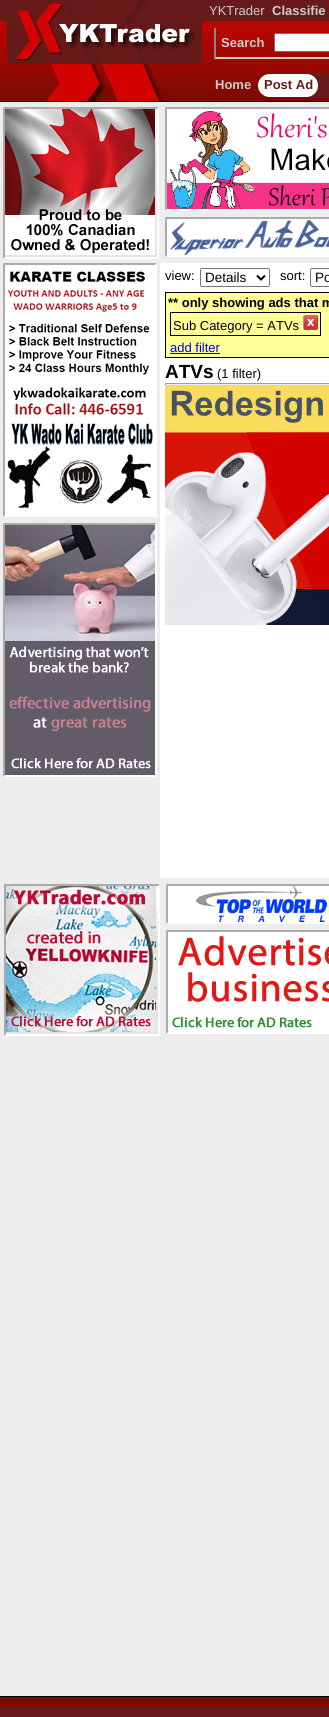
import math
import cairo

surface = cairo.ImageSurface(cairo.FORMAT_RGB24, 329, 1717)
cr = cairo.Context(surface)
options = cairo.FontOptions()
options.set_hint_metrics(cairo.HINT_METRICS_OFF)
options.set_hint_style(cairo.HINT_STYLE_NONE)
cr.set_font_options(options)
cr.set_miter_limit(4)


def rgb(code):
    cr.set_source_rgb(*(v / 255 for v in bytes.fromhex(code[-6:])))


def rrect(x, y, w, h, r):
    cr.new_sub_path()
    for i, (u, v) in enumerate([(x + w - r, y + h - r), (x + r, y + h - r), (x + r, y + r), (x + w - r, y + r)]):
        cr.arc(u, v, r, i * math.pi / 2, (i + 1) * math.pi / 2)
    cr.close_path()


def image(path, x, y, w, h):
    cr.save()
    cr.set_source_surface(cairo.ImageSurface.create_from_png(path), x, y)
    cr.rectangle(x, y, w, h)
    cr.fill()
    cr.restore()


rgb("#ededed")
cr.paint()
image("img/1.png", 0, 0, 329, 101)
rgb("#000000")
cr.rectangle(0, 101, 329, 1)
cr.fill()
image("img/2.png", 4, 0, 201, 101)
rgb("#cccccc")
cr.new_path()
cr.move_to(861, 59)
cr.line_to(214, 59)
cr.line_to(216, 57)
cr.line_to(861, 57)
cr.close_path()
cr.fill()
rgb("#888888")
cr.new_path()
cr.move_to(214, 59)
cr.line_to(214, 28)
cr.line_to(216, 28)
cr.line_to(216, 57)
cr.close_path()
cr.fill()
rgb("#ffffff")
rrect(274.5, 33.5, 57, 18, 1.5)
cr.fill_preserve()
rgb("#767676")
cr.set_line_width(1)
cr.stroke()
image("img/3.png", 258, 74, 62, 23)
rgb("#671a19")
cr.rectangle(320, 74, 9, 23)
cr.fill()
rgb("#e4e4e4")
cr.rectangle(3, 107, 156, 152)
cr.fill()
image("img/4.png", 155, 109, 2, 47)
rgb("#aaaaaa")
cr.new_path()
cr.move_to(3, 107)
cr.line_to(159, 107)
cr.line_to(157, 109)
cr.line_to(5, 109)
cr.close_path()
cr.fill()
rgb("#ffffff")
cr.new_path()
cr.move_to(159, 107)
cr.line_to(159, 259)
cr.line_to(157, 257)
cr.line_to(157, 109)
cr.close_path()
cr.fill()
cr.new_path()
cr.move_to(159, 259)
cr.line_to(3, 259)
cr.line_to(5, 257)
cr.line_to(157, 257)
cr.close_path()
cr.fill()
rgb("#aaaaaa")
cr.new_path()
cr.move_to(3, 259)
cr.line_to(3, 107)
cr.line_to(5, 109)
cr.line_to(5, 257)
cr.close_path()
cr.fill()
image("img/5.png", 5, 109, 150, 146)
cr.new_path()
cr.move_to(165, 107)
cr.line_to(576, 107)
cr.line_to(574, 109)
cr.line_to(167, 109)
cr.close_path()
cr.fill()
rgb("#ffffff")
cr.new_path()
cr.move_to(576, 211)
cr.line_to(165, 211)
cr.line_to(167, 209)
cr.line_to(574, 209)
cr.close_path()
cr.fill()
rgb("#aaaaaa")
cr.new_path()
cr.move_to(165, 211)
cr.line_to(165, 107)
cr.line_to(167, 109)
cr.line_to(167, 209)
cr.close_path()
cr.fill()
image("img/6.png", 167, 109, 162, 100)
cr.new_path()
cr.move_to(165, 217)
cr.line_to(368, 217)
cr.line_to(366, 219)
cr.line_to(167, 219)
cr.close_path()
cr.fill()
rgb("#ffffff")
cr.new_path()
cr.move_to(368, 257)
cr.line_to(165, 257)
cr.line_to(167, 255)
cr.line_to(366, 255)
cr.close_path()
cr.fill()
rgb("#aaaaaa")
cr.new_path()
cr.move_to(165, 257)
cr.line_to(165, 217)
cr.line_to(167, 219)
cr.line_to(167, 255)
cr.close_path()
cr.fill()
image("img/7.png", 167, 219, 162, 36)
rgb("#ffffff")
cr.rectangle(160, 263, 169, 615)
cr.fill()
rgb("#aaaaaa")
cr.new_path()
cr.move_to(3, 263)
cr.line_to(157, 263)
cr.line_to(155, 265)
cr.line_to(5, 265)
cr.close_path()
cr.fill()
rgb("#ffffff")
cr.new_path()
cr.move_to(157, 263)
cr.line_to(157, 517)
cr.line_to(155, 515)
cr.line_to(155, 265)
cr.close_path()
cr.fill()
cr.new_path()
cr.move_to(157, 517)
cr.line_to(3, 517)
cr.line_to(5, 515)
cr.line_to(155, 515)
cr.close_path()
cr.fill()
rgb("#aaaaaa")
cr.new_path()
cr.move_to(3, 517)
cr.line_to(3, 263)
cr.line_to(5, 265)
cr.line_to(5, 515)
cr.close_path()
cr.fill()
image("img/8.png", 5, 265, 150, 250)
cr.new_path()
cr.move_to(3, 523)
cr.line_to(157, 523)
cr.line_to(155, 525)
cr.line_to(5, 525)
cr.close_path()
cr.fill()
rgb("#ffffff")
cr.new_path()
cr.move_to(157, 523)
cr.line_to(157, 777)
cr.line_to(155, 775)
cr.line_to(155, 525)
cr.close_path()
cr.fill()
cr.new_path()
cr.move_to(157, 777)
cr.line_to(3, 777)
cr.line_to(5, 775)
cr.line_to(155, 775)
cr.close_path()
cr.fill()
rgb("#aaaaaa")
cr.new_path()
cr.move_to(3, 777)
cr.line_to(3, 523)
cr.line_to(5, 525)
cr.line_to(5, 775)
cr.close_path()
cr.fill()
image("img/9.png", 5, 525, 150, 250)
rrect(200.5, 268.5, 69, 18, 1.5)
rgb("#767676")
cr.stroke()
cr.new_path()
cr.move_to(257, 275.5)
cr.line_to(261, 279.5)
cr.line_to(265, 275.5)
rgb("#000000")
cr.set_line_width(2)
cr.stroke()
rrect(310.5, 268.5, 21, 18, 1.5)
rgb("#767676")
cr.set_line_width(1)
cr.stroke()
rgb("#ffff99")
cr.rectangle(165.5, 292.5, 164, 65)
cr.fill_preserve()
rgb("#000000")
cr.stroke()
cr.rectangle(170.5, 312.5, 150, 23)
cr.stroke()
image("img/10.png", 303, 315, 15, 15)
for x, y, w, h, color in [
    (170, 353, 50, 1, "#0000ee"),
    (165, 383, 164, 1, "#9f9f9f"),
    (165, 384, 164, 1, "#eeeeee"),
    (165, 383, 1, 2, "#9f9f9f"),
]:
    rgb(color)
    cr.rectangle(x, y, w, h)
    cr.fill()
image("img/11.png", 165, 385, 164, 240)
rgb("#e4e4e4")
cr.rectangle(4, 884, 156, 152)
cr.fill()
image("img/4.png", 156, 886, 2, 47)
rgb("#aaaaaa")
cr.new_path()
cr.move_to(4, 884)
cr.line_to(160, 884)
cr.line_to(158, 886)
cr.line_to(6, 886)
cr.close_path()
cr.fill()
rgb("#ffffff")
cr.new_path()
cr.move_to(160, 884)
cr.line_to(160, 1036)
cr.line_to(158, 1034)
cr.line_to(158, 886)
cr.close_path()
cr.fill()
cr.new_path()
cr.move_to(160, 1036)
cr.line_to(4, 1036)
cr.line_to(6, 1034)
cr.line_to(158, 1034)
cr.close_path()
cr.fill()
rgb("#aaaaaa")
cr.new_path()
cr.move_to(4, 1036)
cr.line_to(4, 884)
cr.line_to(6, 886)
cr.line_to(6, 1034)
cr.close_path()
cr.fill()
image("img/12.png", 6, 886, 150, 146)
cr.new_path()
cr.move_to(166, 884)
cr.line_to(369, 884)
cr.line_to(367, 886)
cr.line_to(168, 886)
cr.close_path()
cr.fill()
rgb("#ffffff")
cr.new_path()
cr.move_to(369, 924)
cr.line_to(166, 924)
cr.line_to(168, 922)
cr.line_to(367, 922)
cr.close_path()
cr.fill()
rgb("#aaaaaa")
cr.new_path()
cr.move_to(166, 924)
cr.line_to(166, 884)
cr.line_to(168, 886)
cr.line_to(168, 922)
cr.close_path()
cr.fill()
image("img/13.png", 168, 886, 161, 36)
cr.new_path()
cr.move_to(166, 930)
cr.line_to(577, 930)
cr.line_to(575, 932)
cr.line_to(168, 932)
cr.close_path()
cr.fill()
rgb("#ffffff")
cr.new_path()
cr.move_to(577, 1034)
cr.line_to(166, 1034)
cr.line_to(168, 1032)
cr.line_to(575, 1032)
cr.close_path()
cr.fill()
rgb("#aaaaaa")
cr.new_path()
cr.move_to(166, 1034)
cr.line_to(166, 930)
cr.line_to(168, 932)
cr.line_to(168, 1032)
cr.close_path()
cr.fill()
image("img/14.png", 168, 932, 161, 100)
image("img/15.png", 0, 1697, 329, 10)
rgb("#000000")
cr.rectangle(0, 1696, 329, 1)
cr.fill()
rgb("#671a19")
cr.rectangle(0, 1707, 329, 10)
cr.fill()
cr.select_font_face("Liberation Sans")
cr.set_font_size(13)
rgb("#cccccc")
cr.move_to(209, 15)
cr.show_text("YKTrader")
cr.select_font_face("Liberation Sans", cairo.FONT_SLANT_NORMAL, cairo.FONT_WEIGHT_BOLD)
for x, y, s in [
    (272, 15, "Classifie"),
    (221, 47, "Search"),
    (215, 89, "Home"),
]:
    cr.move_to(x, y)
    cr.show_text(s)
rgb("#671a19")
cr.move_to(264, 89)
cr.show_text("Post Ad")
cr.select_font_face("Liberation Sans")
rgb("#000000")
cr.move_to(165, 280)
cr.show_text("view:")
cr.set_font_size(13.5)
cr.move_to(205, 282)
cr.show_text("Details")
cr.set_font_size(13)
cr.move_to(280, 280)
cr.show_text("sort:")
cr.set_font_size(13.5)
cr.move_to(315, 282)
cr.show_text("Po")
cr.select_font_face("Liberation Sans", cairo.FONT_SLANT_NORMAL, cairo.FONT_WEIGHT_BOLD)
cr.set_font_size(13)
cr.move_to(168, 307)
cr.show_text("** only showing ads that m")
cr.select_font_face("Liberation Sans")
cr.move_to(173, 330)
cr.show_text("Sub Category = ATVs")
rgb("#0000ee")
cr.move_to(170, 352)
cr.show_text("add filter")
cr.select_font_face("Liberation Sans", cairo.FONT_SLANT_NORMAL, cairo.FONT_WEIGHT_BOLD)
cr.set_font_size(19)
rgb("#000000")
cr.move_to(165, 378)
cr.show_text("ATVs")
cr.select_font_face("Liberation Sans")
cr.set_font_size(13)
cr.move_to(217, 378)
cr.show_text("(1 filter)")
surface.write_to_png("page.png")
